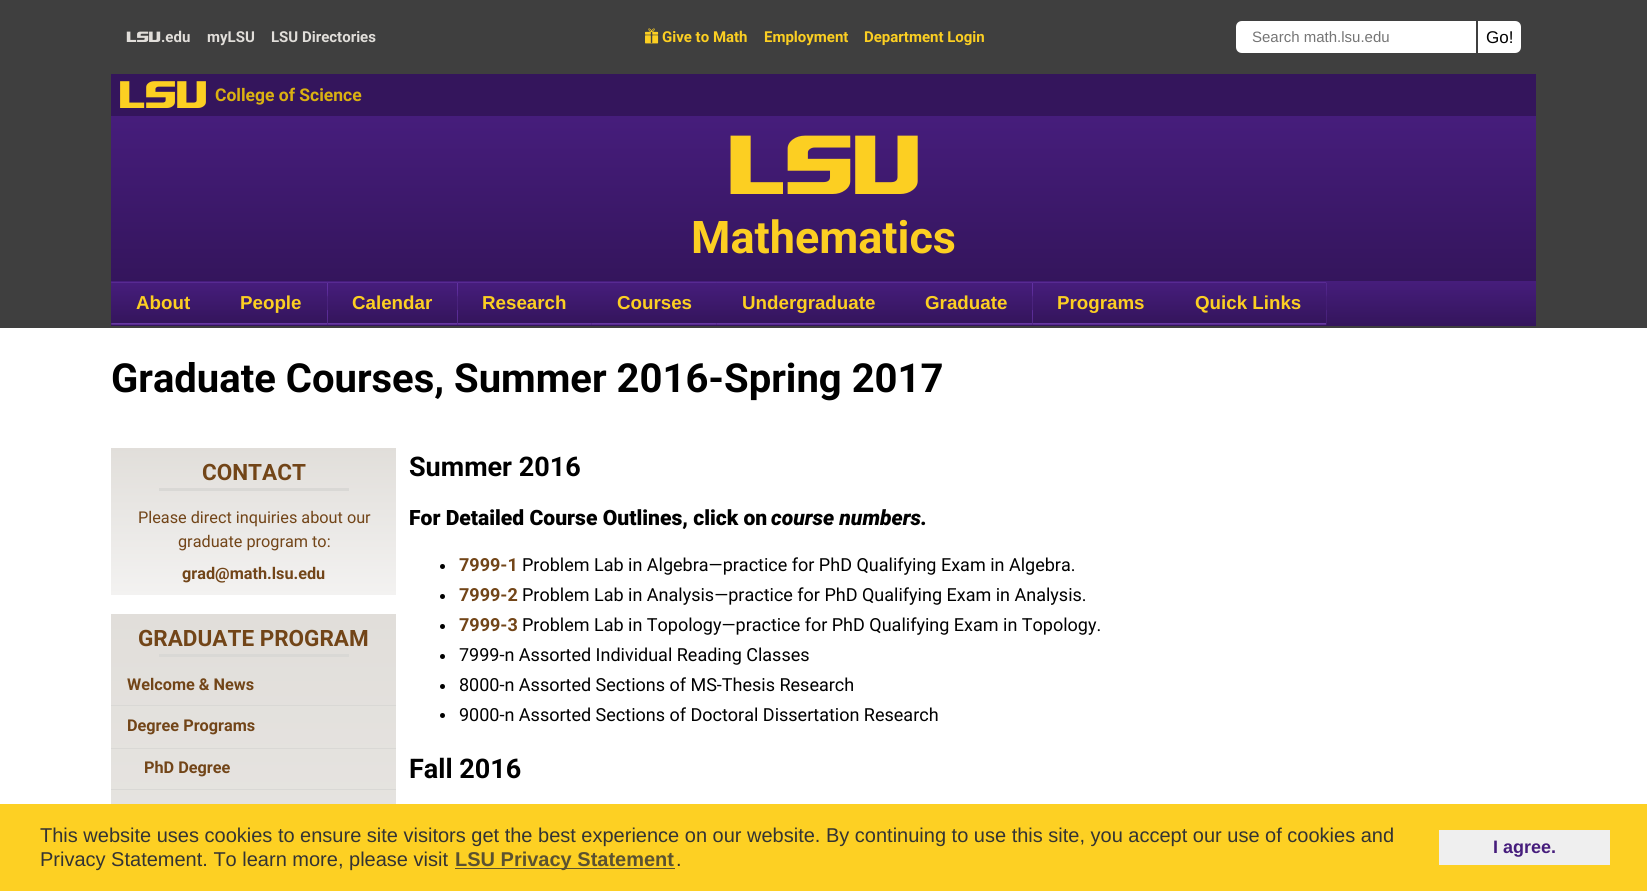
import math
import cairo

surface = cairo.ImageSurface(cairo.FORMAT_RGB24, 1647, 891)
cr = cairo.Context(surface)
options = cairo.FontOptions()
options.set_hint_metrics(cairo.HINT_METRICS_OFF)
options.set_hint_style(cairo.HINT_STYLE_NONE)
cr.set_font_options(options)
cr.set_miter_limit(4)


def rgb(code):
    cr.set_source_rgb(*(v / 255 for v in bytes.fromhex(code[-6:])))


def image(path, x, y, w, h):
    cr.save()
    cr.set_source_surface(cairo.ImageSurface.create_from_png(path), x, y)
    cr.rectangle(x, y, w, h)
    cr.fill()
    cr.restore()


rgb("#ffffff")
cr.paint()
rgb("#3f3f3f")
cr.rectangle(0, 0, 1647, 328)
cr.fill()
image("img/1.png", 645, 28, 14, 16)
rgb("#ffffff")
cr.new_path()
cr.move_to(1242, 21)
cr.line_to(1476, 21)
cr.line_to(1476, 53)
cr.line_to(1242, 53)
cr.curve_to(1238.5, 53, 1236, 50.5, 1236, 47)
cr.line_to(1236, 27)
cr.curve_to(1236, 23.5, 1238.5, 21, 1242, 21)
cr.close_path()
cr.fill()
cr.new_path()
cr.move_to(1478, 21)
cr.line_to(1515, 21)
cr.curve_to(1518.5, 21, 1521, 23.5, 1521, 27)
cr.line_to(1521, 47)
cr.curve_to(1521, 50.5, 1518.5, 53, 1515, 53)
cr.line_to(1478, 53)
cr.close_path()
cr.fill()
rgb("#34155c")
cr.rectangle(111, 74, 1425, 42)
cr.fill()
gradient = cairo.LinearGradient(824, 116, 824, 281)
gradient.add_color_stop_rgba(0, 0.275, 0.114, 0.486, 1)
gradient.add_color_stop_rgba(1, 0.204, 0.082, 0.361, 1)
cr.set_source(gradient)
cr.rectangle(111, 116, 1425, 165)
cr.fill()
gradient = cairo.LinearGradient(824, 281, 824, 326)
gradient.add_color_stop_rgba(0, 0.275, 0.114, 0.486, 1)
gradient.add_color_stop_rgba(1, 0.204, 0.082, 0.361, 1)
cr.set_source(gradient)
cr.rectangle(111, 281, 1425, 45)
cr.fill()
image("img/2.png", 111, 282, 104, 43)
gradient = cairo.LinearGradient(163, 283, 163, 323)
gradient.add_color_stop_rgba(0, 0.275, 0.114, 0.486, 1)
gradient.add_color_stop_rgba(1, 0.204, 0.082, 0.361, 1)
cr.set_source(gradient)
cr.rectangle(111, 283, 104, 40)
cr.fill()
image("img/3.png", 215, 282, 113, 43)
gradient = cairo.LinearGradient(271, 283, 271, 323)
gradient.add_color_stop_rgba(0, 0.275, 0.114, 0.486, 1)
gradient.add_color_stop_rgba(1, 0.204, 0.082, 0.361, 1)
cr.set_source(gradient)
cr.rectangle(215, 283, 113, 40)
cr.fill()
image("img/4.png", 327, 282, 131, 43)
gradient = cairo.LinearGradient(393, 283, 393, 323)
gradient.add_color_stop_rgba(0, 0.275, 0.114, 0.486, 1)
gradient.add_color_stop_rgba(1, 0.204, 0.082, 0.361, 1)
cr.set_source(gradient)
cr.rectangle(328, 283, 130, 40)
cr.fill()
image("img/5.png", 457, 282, 135, 43)
gradient = cairo.LinearGradient(524, 283, 524, 323)
gradient.add_color_stop_rgba(0, 0.275, 0.114, 0.486, 1)
gradient.add_color_stop_rgba(1, 0.204, 0.082, 0.361, 1)
cr.set_source(gradient)
cr.rectangle(458, 283, 133, 40)
cr.fill()
image("img/6.png", 591, 282, 126, 43)
gradient = cairo.LinearGradient(654, 283, 654, 323)
gradient.add_color_stop_rgba(0, 0.275, 0.114, 0.486, 1)
gradient.add_color_stop_rgba(1, 0.204, 0.082, 0.361, 1)
cr.set_source(gradient)
cr.rectangle(591, 283, 125, 40)
cr.fill()
image("img/7.png", 716, 282, 184, 43)
gradient = cairo.LinearGradient(808, 283, 808, 323)
gradient.add_color_stop_rgba(0, 0.275, 0.114, 0.486, 1)
gradient.add_color_stop_rgba(1, 0.204, 0.082, 0.361, 1)
cr.set_source(gradient)
cr.rectangle(716, 283, 184, 40)
cr.fill()
image("img/8.png", 900, 282, 133, 43)
gradient = cairo.LinearGradient(966, 283, 966, 323)
gradient.add_color_stop_rgba(0, 0.275, 0.114, 0.486, 1)
gradient.add_color_stop_rgba(1, 0.204, 0.082, 0.361, 1)
cr.set_source(gradient)
cr.rectangle(900, 283, 133, 40)
cr.fill()
image("img/9.png", 1032, 282, 138, 43)
gradient = cairo.LinearGradient(1101, 283, 1101, 323)
gradient.add_color_stop_rgba(0, 0.275, 0.114, 0.486, 1)
gradient.add_color_stop_rgba(1, 0.204, 0.082, 0.361, 1)
cr.set_source(gradient)
cr.rectangle(1033, 283, 137, 40)
cr.fill()
image("img/10.png", 1170, 282, 157, 43)
gradient = cairo.LinearGradient(1248, 283, 1248, 323)
gradient.add_color_stop_rgba(0, 0.275, 0.114, 0.486, 1)
gradient.add_color_stop_rgba(1, 0.204, 0.082, 0.361, 1)
cr.set_source(gradient)
cr.rectangle(1170, 283, 156, 40)
cr.fill()
gradient = cairo.LinearGradient(254, 448, 254, 595)
gradient.add_color_stop_rgba(0, 0.882, 0.871, 0.855, 1)
gradient.add_color_stop_rgba(1, 0.953, 0.949, 0.945, 1)
cr.set_source(gradient)
cr.rectangle(111, 448, 285, 147)
cr.fill()
rgb("#d9d8d5")
cr.rectangle(159, 488, 190, 3)
cr.fill()
gradient = cairo.LinearGradient(254, 614, 254, 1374)
gradient.add_color_stop_rgba(0, 0.882, 0.871, 0.855, 1)
gradient.add_color_stop_rgba(1, 0.953, 0.949, 0.945, 1)
cr.set_source(gradient)
cr.rectangle(111, 614, 285, 190)
cr.fill()
for x, y, w, h, color in [
    (159, 654, 190, 3, "#d9d8d5"),
    (111, 705, 285, 1, "#d9d8d5"),
    (111, 748, 285, 1, "#d9d8d5"),
    (111, 789, 285, 1, "#d9d8d5"),
]:
    rgb(color)
    cr.rectangle(x, y, w, h)
    cr.fill()
rgb("#000000")
cr.arc(442.5, 566.5, 2.5, 0, 2 * math.pi)
cr.fill()
cr.arc(442.5, 596.5, 2.5, 0, 2 * math.pi)
cr.fill()
cr.arc(442.5, 626.5, 2.5, 0, 2 * math.pi)
cr.fill()
cr.arc(442.5, 656.5, 2.5, 0, 2 * math.pi)
cr.fill()
cr.arc(442.5, 686.5, 2.5, 0, 2 * math.pi)
cr.fill()
cr.arc(442.5, 715.5, 2.5, 0, 2 * math.pi)
cr.fill()
for x, y, w, h, color in [
    (0, 804, 1647, 87, "#fdd023"),
    (455, 868, 220, 1, "#5b5230"),
    (1439, 830, 171, 35, "#efefef"),
]:
    rgb(color)
    cr.rectangle(x, y, w, h)
    cr.fill()
cr.select_font_face("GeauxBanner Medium")
cr.set_font_size(12)
rgb("#e1deda")
cr.move_to(126, 42)
cr.show_text("LSU")
cr.select_font_face("Roboto", cairo.FONT_SLANT_NORMAL, cairo.FONT_WEIGHT_BOLD)
cr.set_font_size(15)
for x, y, s in [
    (161, 42, ".edu"),
    (207, 42, "myLSU"),
    (271, 42, "LSU Directories"),
]:
    cr.move_to(x, y)
    cr.show_text(s)
rgb("#fccf22")
for x, y, s in [
    (662, 42, "Give to Math"),
    (764, 42, "Employment"),
    (864, 42, "Department Login"),
]:
    cr.move_to(x, y)
    cr.show_text(s)
cr.select_font_face("Liberation Sans")
rgb("#757575")
cr.move_to(1252, 42)
cr.show_text("Search math.lsu.edu")
cr.set_font_size(17)
rgb("#000000")
cr.move_to(1486, 43)
cr.show_text("Go!")
cr.select_font_face("GeauxBanner Medium")
cr.set_font_size(31)
rgb("#fccf22")
cr.move_to(118, 108)
cr.show_text("LSU")
cr.select_font_face("Roboto", cairo.FONT_SLANT_NORMAL, cairo.FONT_WEIGHT_BOLD)
cr.set_font_size(17.5)
rgb("#dab111")
cr.move_to(215, 101)
cr.show_text("College of Science")
cr.select_font_face("GeauxBanner Medium")
cr.set_font_size(67.5)
rgb("#fccf22")
cr.move_to(726, 194)
cr.show_text("LSU")
cr.select_font_face("Roboto", cairo.FONT_SLANT_NORMAL, cairo.FONT_WEIGHT_BOLD)
cr.set_font_size(45)
cr.move_to(691, 253)
cr.show_text("Mathematics")
cr.select_font_face("Liberation Sans", cairo.FONT_SLANT_NORMAL, cairo.FONT_WEIGHT_BOLD)
cr.set_font_size(18.75)
for x, y, s in [
    (136, 309, "About"),
    (240, 309, "People"),
    (352, 309, "Calendar"),
    (482, 309, "Research"),
    (617, 309, "Courses"),
    (742, 309, "Undergraduate"),
    (925, 309, "Graduate"),
    (1057, 309, "Programs"),
    (1195, 309, "Quick Links"),
]:
    cr.move_to(x, y)
    cr.show_text(s)
cr.select_font_face("Roboto", cairo.FONT_SLANT_NORMAL, cairo.FONT_WEIGHT_BOLD)
cr.set_font_size(40)
rgb("#000000")
cr.move_to(111, 392)
cr.show_text("Graduate Courses, Summer 2016-Spring 2017")
cr.set_font_size(22.5)
rgb("#724518")
cr.move_to(202, 480)
cr.show_text("CONTACT")
cr.select_font_face("Roboto")
cr.set_font_size(16.25)
cr.move_to(138, 523)
cr.show_text("Please direct inquiries about our")
cr.move_to(178, 547)
cr.show_text("graduate program to:")
cr.select_font_face("Roboto", cairo.FONT_SLANT_NORMAL, cairo.FONT_WEIGHT_BOLD)
cr.move_to(182, 579)
cr.show_text("grad@math.lsu.edu")
cr.set_font_size(22.5)
cr.move_to(138, 646)
cr.show_text("GRADUATE PROGRAM")
cr.set_font_size(16.25)
for x, y, s in [
    (127, 690, "Welcome & News"),
    (127, 731, "Degree Programs"),
    (144, 773, "PhD Degree"),
]:
    cr.move_to(x, y)
    cr.show_text(s)
cr.set_font_size(27)
rgb("#000000")
cr.move_to(409, 476)
cr.show_text("Summer 2016")
cr.select_font_face("Roboto Black")
cr.set_font_size(21.1)
cr.move_to(409, 525)
cr.show_text("For Detailed Course Outlines, click on")
cr.select_font_face("Roboto Black", cairo.FONT_SLANT_ITALIC)
cr.move_to(771, 525)
cr.show_text("course numbers.")
cr.select_font_face("Roboto", cairo.FONT_SLANT_NORMAL, cairo.FONT_WEIGHT_BOLD)
cr.set_font_size(18)
rgb("#724518")
cr.move_to(459, 571)
cr.show_text("7999-1")
cr.select_font_face("Roboto")
rgb("#000000")
cr.move_to(522, 571)
cr.show_text("Problem Lab in Algebra—practice for PhD Qualifying Exam in Algebra.")
cr.select_font_face("Roboto", cairo.FONT_SLANT_NORMAL, cairo.FONT_WEIGHT_BOLD)
rgb("#724518")
cr.move_to(459, 601)
cr.show_text("7999-2")
cr.select_font_face("Roboto")
rgb("#000000")
cr.move_to(522, 601)
cr.show_text("Problem Lab in Analysis—practice for PhD Qualifying Exam in Analysis.")
cr.select_font_face("Roboto", cairo.FONT_SLANT_NORMAL, cairo.FONT_WEIGHT_BOLD)
rgb("#724518")
cr.move_to(459, 631)
cr.show_text("7999-3")
cr.select_font_face("Roboto")
rgb("#000000")
for x, y, s in [
    (522, 631, "Problem Lab in Topology—practice for PhD Qualifying Exam in Topology."),
    (459, 661, "7999-n Assorted Individual Reading Classes"),
    (459, 691, "8000-n Assorted Sections of MS-Thesis Research"),
    (459, 721, "9000-n Assorted Sections of Doctoral Dissertation Research"),
]:
    cr.move_to(x, y)
    cr.show_text(s)
cr.select_font_face("Roboto", cairo.FONT_SLANT_NORMAL, cairo.FONT_WEIGHT_BOLD)
cr.set_font_size(27)
cr.move_to(409, 778)
cr.show_text("Fall 2016")
cr.select_font_face("Liberation Sans")
cr.set_font_size(20)
rgb("#333333")
cr.move_to(40, 842)
cr.show_text("This website uses cookies to ensure site visitors get the best experience on our website. By continuing to use this site, you accept our use of cookies and")
cr.move_to(40, 866)
cr.show_text("Privacy Statement. To learn more, please visit")
cr.select_font_face("Liberation Sans", cairo.FONT_SLANT_NORMAL, cairo.FONT_WEIGHT_BOLD)
rgb("#5b5230")
cr.move_to(455, 866)
cr.show_text("LSU Privacy Statement")
cr.select_font_face("Liberation Sans")
rgb("#333333")
cr.move_to(676, 866)
cr.show_text(".")
cr.select_font_face("Liberation Sans", cairo.FONT_SLANT_NORMAL, cairo.FONT_WEIGHT_BOLD)
cr.set_font_size(18)
rgb("#461d7c")
cr.move_to(1493, 853)
cr.show_text("I agree.")
surface.write_to_png("page.png")
